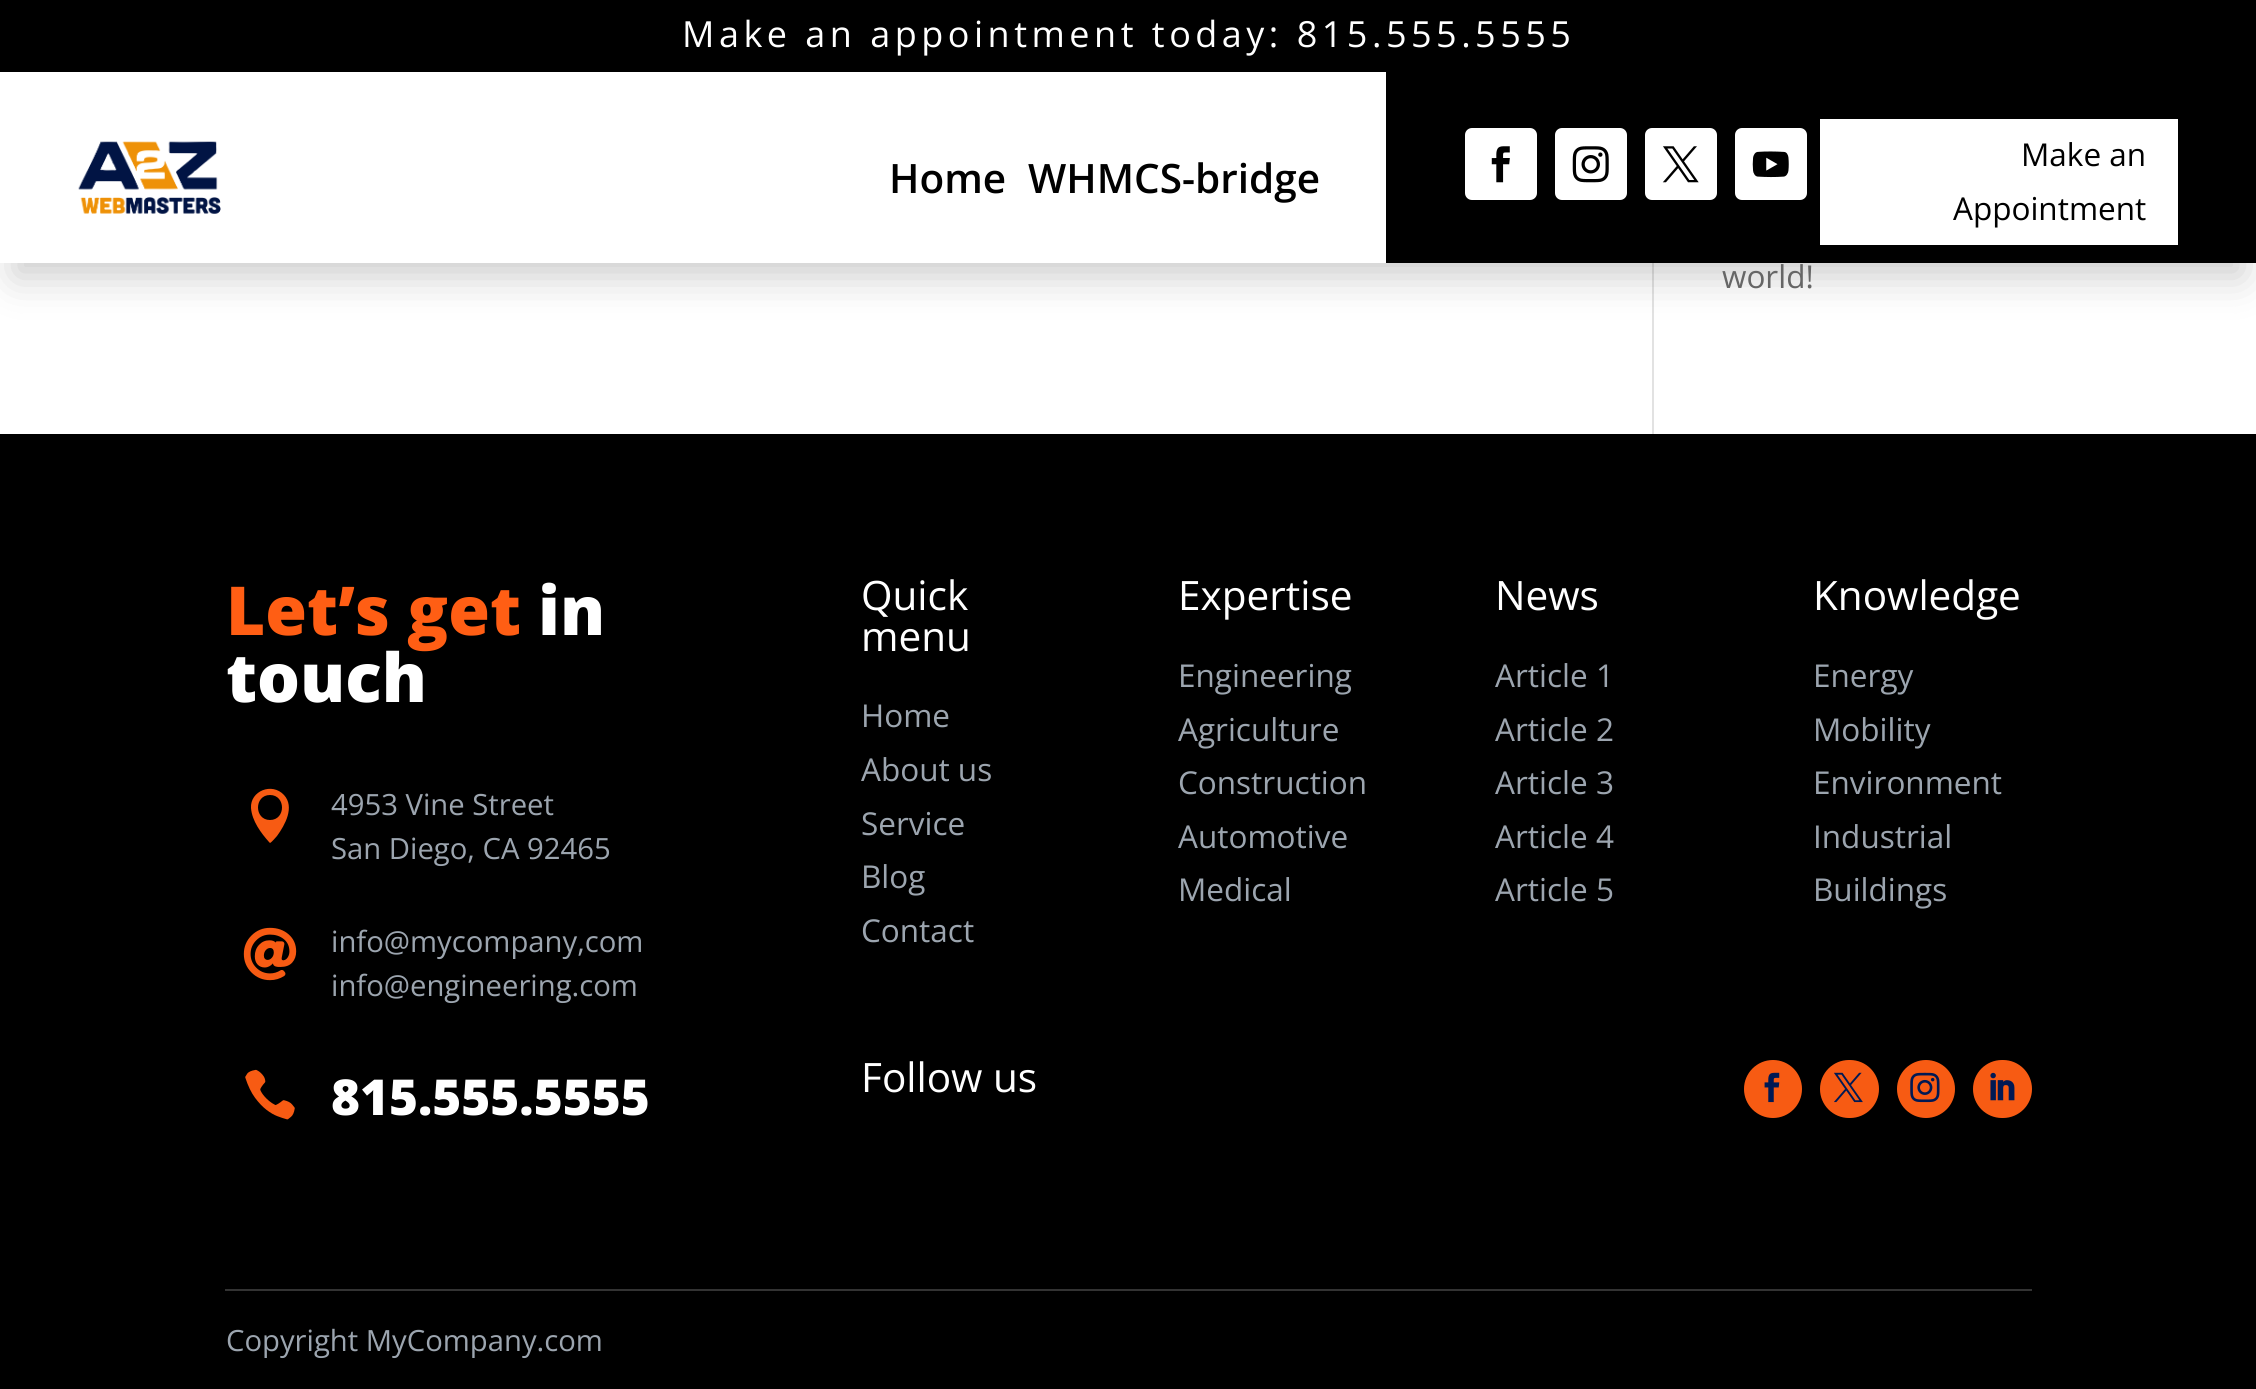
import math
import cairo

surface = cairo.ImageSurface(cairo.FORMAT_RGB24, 2256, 1389)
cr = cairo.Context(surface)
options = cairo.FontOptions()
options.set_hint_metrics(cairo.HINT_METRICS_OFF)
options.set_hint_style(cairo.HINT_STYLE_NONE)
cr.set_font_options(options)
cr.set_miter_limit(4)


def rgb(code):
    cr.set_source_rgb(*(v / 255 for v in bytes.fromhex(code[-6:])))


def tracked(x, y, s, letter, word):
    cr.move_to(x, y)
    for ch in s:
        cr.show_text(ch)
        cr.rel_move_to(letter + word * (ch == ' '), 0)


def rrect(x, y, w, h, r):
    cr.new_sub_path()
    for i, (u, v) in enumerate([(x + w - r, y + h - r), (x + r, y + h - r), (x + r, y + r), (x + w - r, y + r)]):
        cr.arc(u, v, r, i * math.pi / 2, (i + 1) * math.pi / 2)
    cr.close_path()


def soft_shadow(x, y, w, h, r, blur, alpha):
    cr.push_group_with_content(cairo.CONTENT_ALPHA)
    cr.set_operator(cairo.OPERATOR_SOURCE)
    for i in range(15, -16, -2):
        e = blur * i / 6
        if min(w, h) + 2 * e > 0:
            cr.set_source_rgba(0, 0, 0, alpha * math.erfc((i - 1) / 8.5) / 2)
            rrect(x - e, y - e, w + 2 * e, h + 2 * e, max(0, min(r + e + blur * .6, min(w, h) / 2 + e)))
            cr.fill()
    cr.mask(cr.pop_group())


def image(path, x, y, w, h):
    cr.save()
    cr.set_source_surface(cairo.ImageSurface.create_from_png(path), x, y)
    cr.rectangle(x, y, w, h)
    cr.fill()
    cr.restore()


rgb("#ffffff")
cr.paint()
rgb("#e2e2e2")
cr.rectangle(1652, 263, 2, 171)
cr.fill()
rgb("#000000")
soft_shadow(14, 41, 2229, 236, 0, 20, 0.2)
for x, y, w, h, color in [
    (0, 72, 1386, 191, "#ffffff"),
    (0, 0, 2256, 72, "#000000"),
    (1386, 72, 870, 191, "#000000"),
]:
    rgb(color)
    cr.rectangle(x, y, w, h)
    cr.fill()
rgb("#ffffff")
rrect(1465, 128, 72, 72, 7)
cr.fill()
image("img/1.png", 1491, 146, 19, 37)
rrect(1555, 128, 72, 72, 7)
cr.fill()
image("img/2.png", 1572, 146, 37, 37)
rrect(1645, 128, 72, 72, 7)
cr.fill()
image("img/3.png", 1662, 146, 37, 37)
rrect(1735, 128, 72, 72, 7)
cr.fill()
image("img/4.png", 1752, 151, 37, 27)
image("img/5.png", 78, 141, 143, 73)
cr.rectangle(1820, 119, 358, 126)
cr.fill()
rgb("#000000")
cr.rectangle(0, 434, 2256, 955)
cr.fill()
rgb("#f75b13")
cr.new_path()
cr.move_to(269, 842)
cr.line_to(270, 843)
cr.curve_to(272, 842, 276, 837, 277, 836)
cr.curve_to(285, 825, 295, 807, 284, 795)
cr.curve_to(272, 782, 250, 791, 251, 808)
cr.curve_to(252, 821, 261, 833, 269, 842)
cr.close_path()
cr.move_to(270, 795)
cr.curve_to(286, 795, 286, 820, 270, 820)
cr.curve_to(254, 820, 254, 795, 270, 795)
cr.close_path()
cr.fill()
image("img/6.png", 243, 927, 54, 54)
image("img/7.png", 245, 1069, 50, 51)
cr.arc(1773, 1089, 29, 0, 2 * math.pi)
cr.fill()
image("img/8.png", 1764, 1072, 16, 31)
rrect(1820, 1060, 59, 58, 29)
cr.fill()
image("img/9.png", 1834, 1072, 29, 31)
cr.arc(1926, 1089, 29, 0, 2 * math.pi)
cr.fill()
image("img/10.png", 1910, 1072, 30, 31)
rrect(1973, 1060, 59, 58, 29)
cr.fill()
image("img/11.png", 1990, 1072, 25, 29)
rgb("#333333")
cr.rectangle(225, 1289, 1807, 2)
cr.fill()
cr.select_font_face("Open Sans")
cr.set_font_size(36)
rgb("#ffffff")
tracked(682, 47, "Make an appointment today: 815.555.5555", 4.5, 0)
cr.select_font_face("Open Sans SemiBold")
cr.set_font_size(40.5)
rgb("#000000")
cr.move_to(889, 193)
cr.show_text("Home")
cr.move_to(1028, 193)
cr.show_text("WHMCS-bridge")
cr.select_font_face("Open Sans")
cr.set_font_size(31.5)
cr.move_to(2021, 166)
cr.show_text("Make an")
cr.move_to(1953, 220)
cr.show_text("Appointment")
rgb("#666666")
cr.move_to(1722, 288)
cr.show_text("world!")
cr.select_font_face("Open Sans ExtraBold")
cr.set_font_size(67.5)
rgb("#ff5e14")
cr.move_to(226, 635)
cr.show_text("Let’s get")
rgb("#ffffff")
cr.move_to(538, 635)
cr.show_text("in")
cr.move_to(226, 702)
cr.show_text("touch")
cr.select_font_face("Open Sans")
cr.set_font_size(29.25)
rgb("#9ca5af")
for x, y, s in [
    (331, 815, "4953 Vine Street"),
    (331, 859, "San Diego, CA 92465"),
    (331, 952, "info@mycompany,com"),
    (331, 996, "info@engineering.com"),
]:
    cr.move_to(x, y)
    cr.show_text(s)
cr.select_font_face("Open Sans ExtraBold")
cr.set_font_size(49.5)
rgb("#ffffff")
cr.move_to(331, 1115)
cr.show_text("815.555.5555")
cr.select_font_face("Open Sans")
cr.set_font_size(40.5)
cr.move_to(861, 610)
cr.show_text("Quick")
cr.move_to(861, 651)
cr.show_text("menu")
cr.set_font_size(31.5)
rgb("#9ca5af")
for x, y, s in [
    (861, 727, "Home"),
    (861, 781, "About us"),
    (861, 835, "Service"),
    (861, 888, "Blog"),
    (861, 942, "Contact"),
]:
    cr.move_to(x, y)
    cr.show_text(s)
cr.set_font_size(40.5)
rgb("#ffffff")
cr.move_to(1178, 610)
cr.show_text("Expertise")
cr.set_font_size(31.5)
rgb("#9ca5af")
for x, y, s in [
    (1178, 687, "Engineering"),
    (1178, 741, "Agriculture"),
    (1178, 794, "Construction"),
    (1178, 848, "Automotive"),
    (1178, 901, "Medical"),
]:
    cr.move_to(x, y)
    cr.show_text(s)
cr.set_font_size(40.5)
rgb("#ffffff")
cr.move_to(1495, 610)
cr.show_text("News")
cr.set_font_size(31.5)
rgb("#9ca5af")
for x, y, s in [
    (1495, 687, "Article 1"),
    (1495, 741, "Article 2"),
    (1495, 794, "Article 3"),
    (1495, 848, "Article 4"),
    (1495, 901, "Article 5"),
]:
    cr.move_to(x, y)
    cr.show_text(s)
cr.set_font_size(40.5)
rgb("#ffffff")
cr.move_to(1813, 610)
cr.show_text("Knowledge")
cr.set_font_size(31.5)
rgb("#9ca5af")
for x, y, s in [
    (1813, 687, "Energy"),
    (1813, 741, "Mobility"),
    (1813, 794, "Environment"),
    (1813, 848, "Industrial"),
    (1813, 901, "Buildings"),
]:
    cr.move_to(x, y)
    cr.show_text(s)
cr.set_font_size(40.5)
rgb("#ffffff")
cr.move_to(861, 1092)
cr.show_text("Follow us")
cr.set_font_size(29.25)
rgb("#9ca5af")
cr.move_to(226, 1351)
cr.show_text("Copyright MyCompany.com")
surface.write_to_png("page.png")
